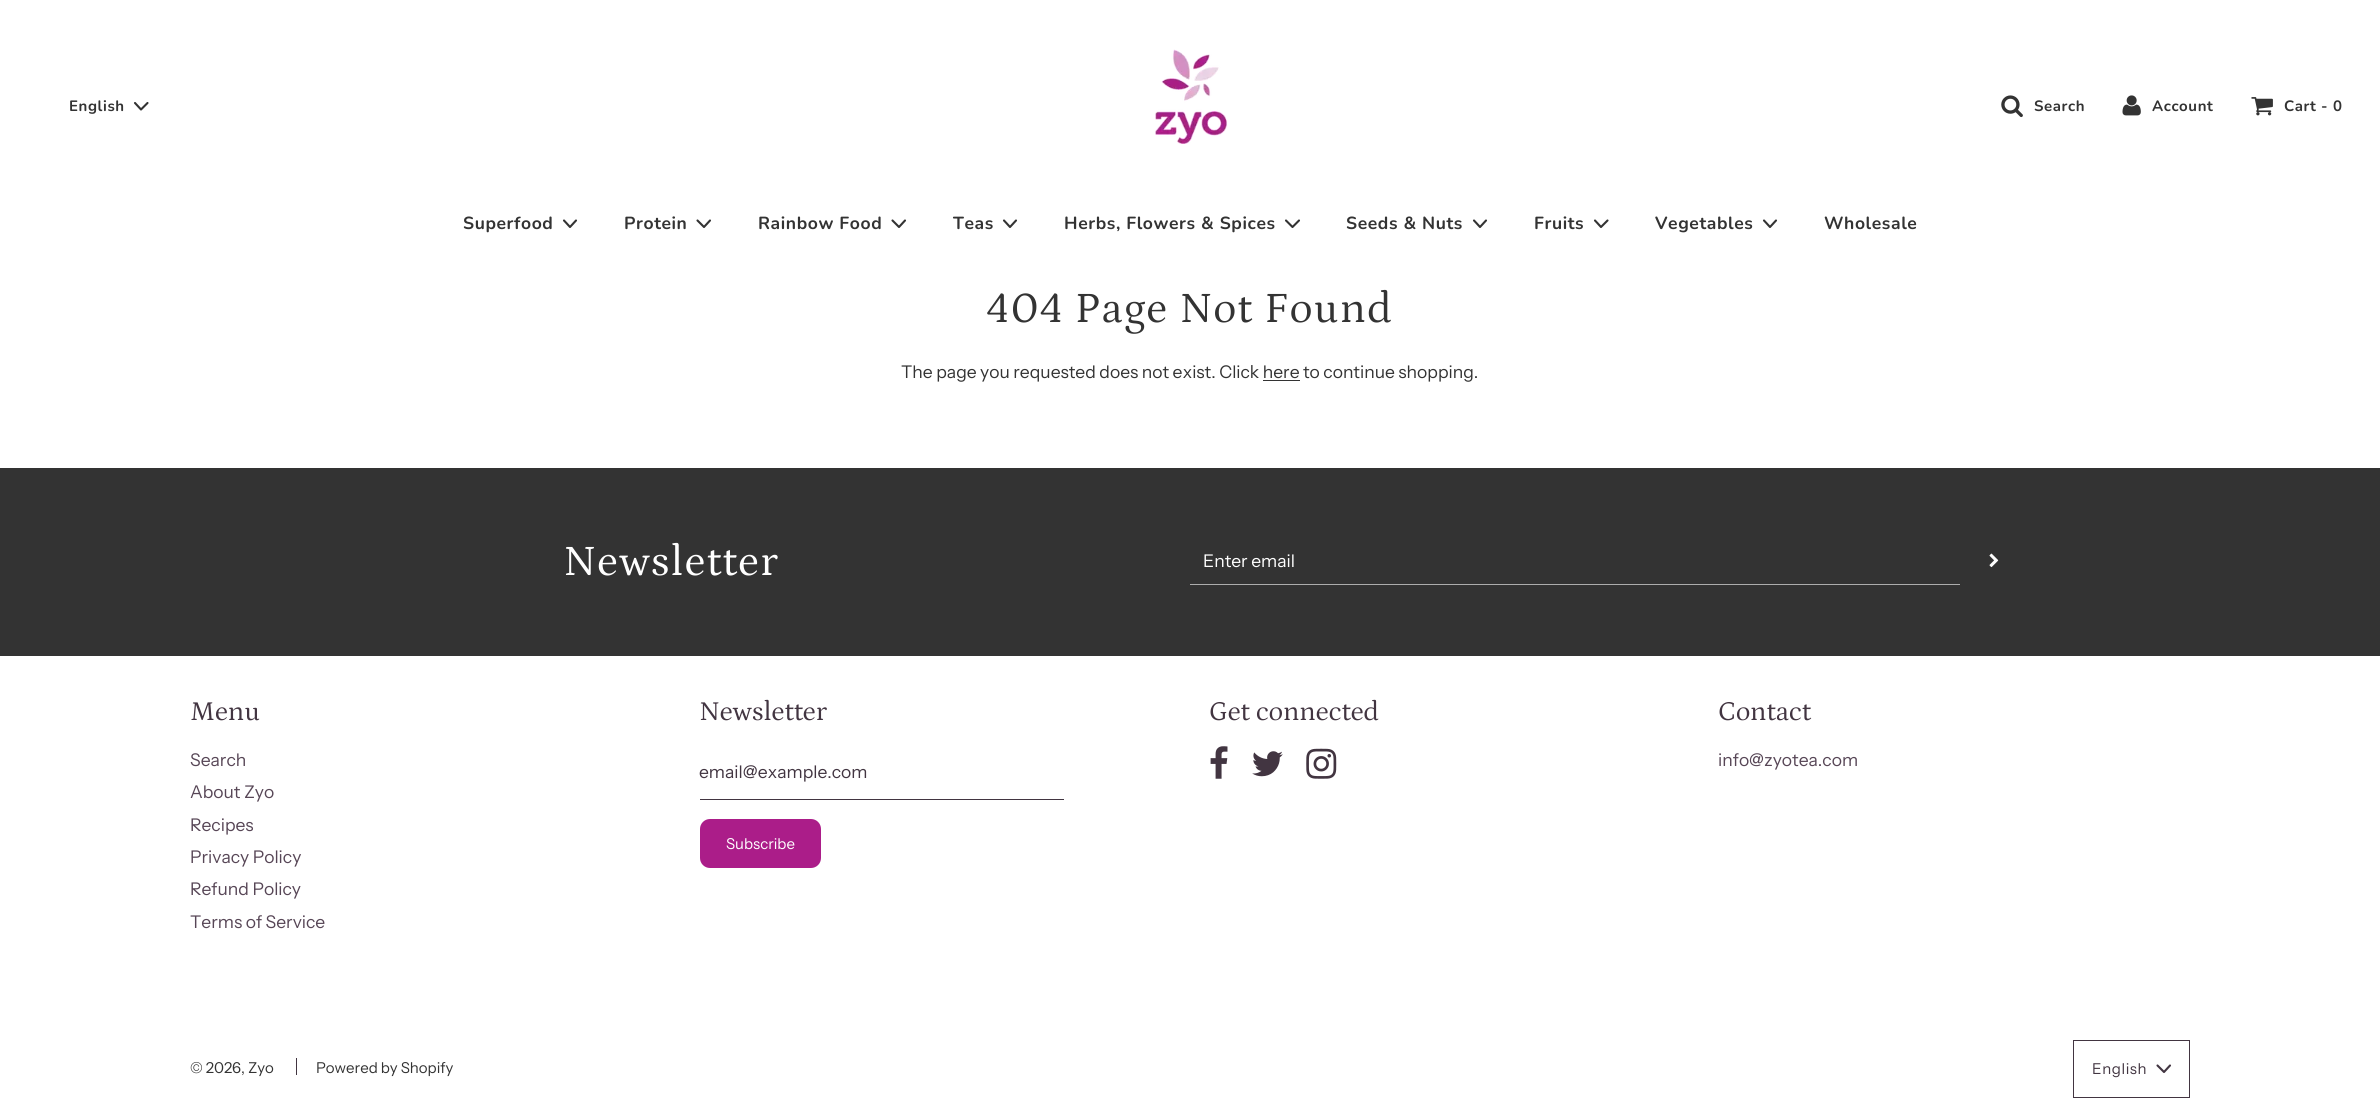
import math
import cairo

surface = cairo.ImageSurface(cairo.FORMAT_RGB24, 2380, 1099)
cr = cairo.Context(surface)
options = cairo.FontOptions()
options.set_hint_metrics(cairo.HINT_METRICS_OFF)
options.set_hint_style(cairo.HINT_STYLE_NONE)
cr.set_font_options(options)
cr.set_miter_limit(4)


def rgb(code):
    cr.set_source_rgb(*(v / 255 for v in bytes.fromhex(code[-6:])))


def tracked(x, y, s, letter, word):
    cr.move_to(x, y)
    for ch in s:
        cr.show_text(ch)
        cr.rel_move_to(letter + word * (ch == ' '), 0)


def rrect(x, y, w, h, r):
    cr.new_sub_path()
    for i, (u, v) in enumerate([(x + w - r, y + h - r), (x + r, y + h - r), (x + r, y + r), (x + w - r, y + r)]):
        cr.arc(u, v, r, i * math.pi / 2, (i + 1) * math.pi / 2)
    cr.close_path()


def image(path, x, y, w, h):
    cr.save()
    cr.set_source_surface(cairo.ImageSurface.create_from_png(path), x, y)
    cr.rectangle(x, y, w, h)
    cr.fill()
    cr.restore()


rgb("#ffffff")
cr.paint()
cr.new_path()
cr.move_to(135, 103)
cr.line_to(141, 109.5)
cr.line_to(147.5, 103)
rgb("#333333")
cr.set_line_width(2.1)
cr.set_line_cap(cairo.LINE_CAP_ROUND)
cr.set_line_join(cairo.LINE_JOIN_ROUND)
cr.stroke()
image("img/1.png", 1155, 49, 73, 95)
image("img/2.png", 2001, 95, 22, 23)
image("img/3.png", 2122, 95, 19, 21)
image("img/4.png", 2251, 97, 22, 19)
cr.new_path()
cr.move_to(564, 220.5)
cr.line_to(570, 227)
cr.line_to(576, 220.5)
cr.stroke()
cr.new_path()
cr.move_to(697.5, 220.5)
cr.line_to(704, 227)
cr.line_to(710, 220.5)
cr.stroke()
cr.new_path()
cr.move_to(892.5, 220.5)
cr.line_to(899, 227)
cr.line_to(905, 220.5)
cr.stroke()
cr.new_path()
cr.move_to(1004, 220.5)
cr.line_to(1010, 227)
cr.line_to(1016, 220.5)
cr.stroke()
cr.new_path()
cr.move_to(1286, 220.5)
cr.line_to(1292.5, 227)
cr.line_to(1299, 220.5)
cr.stroke()
cr.new_path()
cr.move_to(1474, 220.5)
cr.line_to(1480, 227)
cr.line_to(1486, 220.5)
cr.stroke()
cr.new_path()
cr.move_to(1595, 220.5)
cr.line_to(1601, 227)
cr.line_to(1607.5, 220.5)
cr.stroke()
cr.new_path()
cr.move_to(1764, 220.5)
cr.line_to(1770, 227)
cr.line_to(1776, 220.5)
cr.stroke()
for x, y, w, h, color in [
    (1263, 380, 37, 1, "#333333"),
    (0, 468, 2380, 188, "#333333"),
    (1190, 584, 770, 1, "#adadad"),
]:
    rgb(color)
    cr.rectangle(x, y, w, h)
    cr.fill()
image("img/5.png", 1989, 553, 10, 15)
rgb("#423541")
cr.rectangle(700, 799, 364, 1)
cr.fill()
rgb("#ab1d89")
rrect(700, 819, 121, 49, 10)
cr.fill()
image("img/6.png", 1210, 746, 18, 33)
image("img/7.png", 1252, 751, 31, 26)
image("img/8.png", 1306, 748, 31, 31)
rgb("#423541")
cr.rectangle(296, 1058, 1, 17)
cr.fill()
cr.rectangle(2073.5, 1040.5, 116, 57)
cr.set_line_width(1)
cr.set_line_cap(cairo.LINE_CAP_BUTT)
cr.set_line_join(cairo.LINE_JOIN_MITER)
cr.stroke()
cr.new_path()
cr.move_to(2157.5, 1065.5)
cr.line_to(2164, 1072)
cr.line_to(2170, 1065.5)
cr.set_line_width(2.1)
cr.set_line_cap(cairo.LINE_CAP_ROUND)
cr.set_line_join(cairo.LINE_JOIN_ROUND)
cr.stroke()
cr.select_font_face("Nunito", cairo.FONT_SLANT_NORMAL, cairo.FONT_WEIGHT_BOLD)
cr.set_font_size(15)
rgb("#333333")
for x, y, s in [
    (69, 111, "English"),
    (2034, 111, "Search"),
    (2152, 111, "Account"),
    (2284, 111, "Cart - 0"),
]:
    tracked(x, y, s, 0.6, 0)
cr.set_font_size(17.5)
for x, y, s in [
    (463, 229, "Superfood"),
    (624, 229, "Protein"),
    (758, 229, "Rainbow Food"),
    (953, 229, "Teas"),
    (1064, 229, "Herbs, Flowers & Spices"),
    (1346, 229, "Seeds & Nuts"),
    (1534, 229, "Fruits"),
    (1655, 229, "Vegetables"),
    (1824, 229, "Wholesale"),
]:
    tracked(x, y, s, 0.6, 0)
cr.select_font_face("Petrona")
cr.set_font_size(43.75)
tracked(987, 322, "404 Page Not Found", 1.25, 0)
cr.select_font_face("Instrument Sans")
cr.set_font_size(17.5)
cr.move_to(901, 378)
cr.show_text("The page you requested does not exist. Click here to continue shopping.")
cr.select_font_face("Petrona")
cr.set_font_size(43.75)
rgb("#ffffff")
tracked(563, 575, "Newsletter", 1.25, 0)
cr.select_font_face("Instrument Sans")
cr.set_font_size(17.5)
cr.move_to(1203, 567)
cr.show_text("Enter email")
cr.select_font_face("Petrona")
cr.set_font_size(27.5)
rgb("#423541")
cr.move_to(190, 720)
cr.show_text("Menu")
cr.select_font_face("Instrument Sans")
cr.set_font_size(17.5)
rgb("#574656")
for x, y, s in [
    (190, 766, "Search"),
    (190, 798, "About Zyo"),
    (190, 831, "Recipes"),
    (190, 863, "Privacy Policy"),
    (190, 895, "Refund Policy"),
    (190, 928, "Terms of Service"),
]:
    cr.move_to(x, y)
    cr.show_text(s)
cr.select_font_face("Petrona")
cr.set_font_size(27.5)
rgb("#423541")
cr.move_to(699, 720)
cr.show_text("Newsletter")
cr.select_font_face("Instrument Sans")
cr.set_font_size(17.5)
cr.move_to(699, 778)
cr.show_text("email@example.com")
cr.set_font_size(15)
rgb("#ffffff")
cr.move_to(726, 849)
cr.show_text("Subscribe")
cr.select_font_face("Petrona")
cr.set_font_size(27.5)
rgb("#423541")
cr.move_to(1209, 720)
cr.show_text("Get connected")
cr.move_to(1718, 720)
cr.show_text("Contact")
cr.select_font_face("Instrument Sans")
cr.set_font_size(17.5)
rgb("#574656")
cr.move_to(1718, 766)
cr.show_text("info@zyotea.com")
cr.set_font_size(15)
rgb("#333333")
cr.move_to(190, 1073)
cr.show_text("© 2026, Zyo")
cr.move_to(316, 1073)
cr.show_text("Powered by Shopify")
rgb("#423541")
tracked(2092, 1074, "English", 0.6, 0)
surface.write_to_png("page.png")
